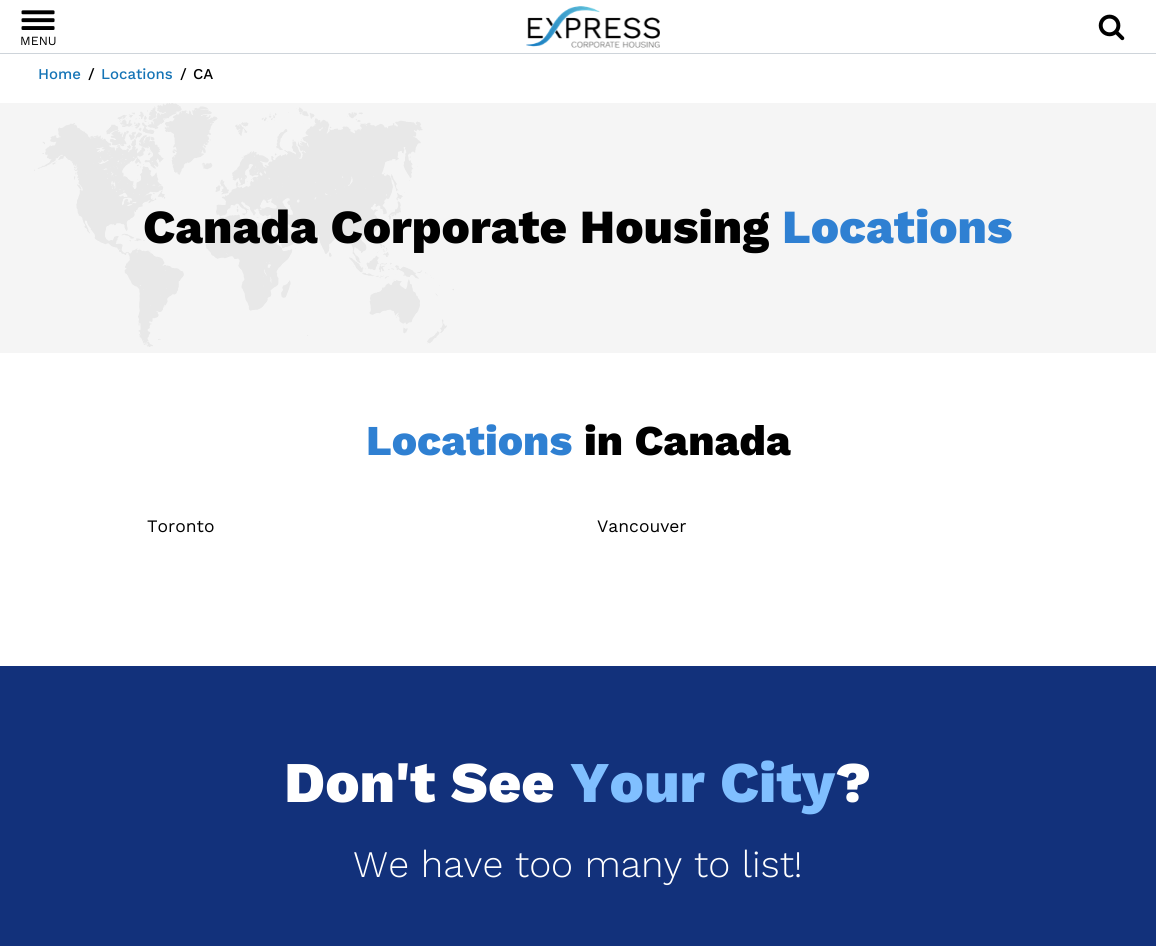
import math
import cairo

surface = cairo.ImageSurface(cairo.FORMAT_RGB24, 1156, 946)
cr = cairo.Context(surface)
options = cairo.FontOptions()
options.set_hint_metrics(cairo.HINT_METRICS_OFF)
options.set_hint_style(cairo.HINT_STYLE_NONE)
cr.set_font_options(options)
cr.set_miter_limit(4)


def rgb(code):
    cr.set_source_rgb(*(v / 255 for v in bytes.fromhex(code[-6:])))


def image(path, x, y, w, h):
    cr.save()
    cr.set_source_surface(cairo.ImageSurface.create_from_png(path), x, y)
    cr.rectangle(x, y, w, h)
    cr.fill()
    cr.restore()


rgb("#ffffff")
cr.paint()
rgb("#ced4da")
cr.rectangle(0, 53, 1156, 1)
cr.fill()
image("img/1.png", 21, 10, 34, 20)
image("img/2.png", 526, 6, 134, 42)
image("img/3.png", 1098, 14, 27, 27)
rgb("#f5f5f5")
cr.rectangle(0, 103, 1156, 250)
cr.fill()
image("img/4.png", 34, 103, 420, 244)
rgb("#12317b")
cr.rectangle(0, 666, 1156, 280)
cr.fill()
cr.select_font_face("Work Sans")
cr.set_font_size(12.5)
rgb("#000000")
cr.move_to(20, 45)
cr.show_text("MENU")
cr.select_font_face("Work Sans Medium")
cr.set_font_size(15)
rgb("#1574b6")
cr.move_to(38, 79)
cr.show_text("Home")
rgb("#000000")
cr.move_to(88, 79)
cr.show_text("/")
rgb("#1574b6")
cr.move_to(101, 79)
cr.show_text("Locations")
rgb("#000000")
cr.move_to(180, 79)
cr.show_text("/")
cr.move_to(193, 79)
cr.show_text("CA")
cr.select_font_face("Work Sans ExtraBold")
cr.set_font_size(47.5)
cr.move_to(143, 243)
cr.show_text("Canada Corporate Housing")
rgb("#2f80d2")
cr.move_to(782, 243)
cr.show_text("Locations")
cr.set_font_size(42.5)
cr.move_to(366, 455)
cr.show_text("Locations")
rgb("#000000")
cr.move_to(584, 455)
cr.show_text("in Canada")
cr.select_font_face("Work Sans")
cr.set_font_size(17.5)
cr.move_to(147, 532)
cr.show_text("Toronto")
cr.move_to(597, 532)
cr.show_text("Vancouver")
cr.select_font_face("Work Sans ExtraBold")
cr.set_font_size(57.5)
rgb("#ffffff")
cr.move_to(284, 802)
cr.show_text("Don't See")
rgb("#80bfff")
cr.move_to(570, 802)
cr.show_text("Your City")
rgb("#ffffff")
cr.move_to(835, 802)
cr.show_text("?")
cr.select_font_face("Work Sans Light")
cr.set_font_size(37.5)
cr.move_to(353, 877)
cr.show_text("We have too many to list!")
surface.write_to_png("page.png")
